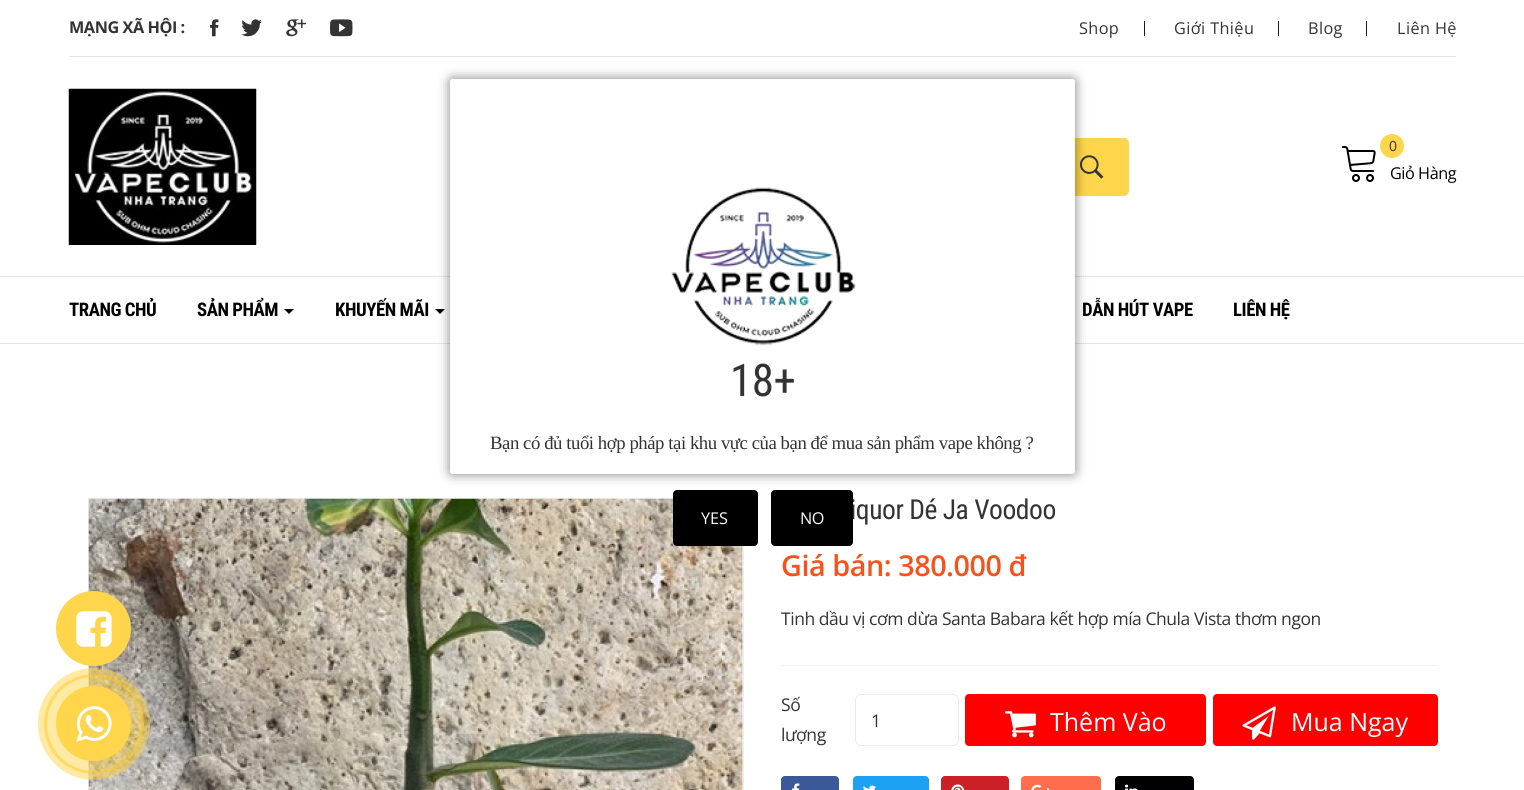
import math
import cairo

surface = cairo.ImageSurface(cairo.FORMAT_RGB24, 1524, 790)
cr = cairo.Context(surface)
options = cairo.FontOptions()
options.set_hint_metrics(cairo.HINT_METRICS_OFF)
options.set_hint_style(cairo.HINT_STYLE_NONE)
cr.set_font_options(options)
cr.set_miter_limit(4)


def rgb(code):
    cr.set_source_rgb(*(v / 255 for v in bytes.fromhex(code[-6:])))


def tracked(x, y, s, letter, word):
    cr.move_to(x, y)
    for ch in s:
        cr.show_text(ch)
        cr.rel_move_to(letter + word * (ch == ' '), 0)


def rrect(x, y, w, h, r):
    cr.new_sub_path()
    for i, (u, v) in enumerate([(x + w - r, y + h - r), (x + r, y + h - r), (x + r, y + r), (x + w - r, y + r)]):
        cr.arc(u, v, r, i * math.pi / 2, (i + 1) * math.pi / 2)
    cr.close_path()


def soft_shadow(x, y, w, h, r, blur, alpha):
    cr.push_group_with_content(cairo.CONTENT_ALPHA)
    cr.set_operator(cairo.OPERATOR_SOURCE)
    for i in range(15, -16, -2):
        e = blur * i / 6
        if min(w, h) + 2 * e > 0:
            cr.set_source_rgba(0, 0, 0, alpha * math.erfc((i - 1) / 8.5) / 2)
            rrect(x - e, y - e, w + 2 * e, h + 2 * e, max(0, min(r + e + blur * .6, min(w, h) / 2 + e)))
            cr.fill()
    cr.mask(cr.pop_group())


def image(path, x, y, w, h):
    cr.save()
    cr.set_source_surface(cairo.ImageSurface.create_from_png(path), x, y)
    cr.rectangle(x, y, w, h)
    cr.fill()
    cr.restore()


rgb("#ffffff")
cr.paint()
rgb("#e6e6e6")
cr.rectangle(69, 56, 1387, 1)
cr.fill()
image("img/1.png", 210, 19, 9, 18)
image("img/2.png", 241, 19, 21, 18)
image("img/3.png", 286, 19, 20, 18)
image("img/4.png", 330, 19, 23, 18)
for x, y, w, h, color in [
    (1144, 21, 1, 15, "#1b1b1b"),
    (1278, 21, 1, 15, "#1b1b1b"),
    (1366, 21, 1, 15, "#1b1b1b"),
]:
    rgb(color)
    cr.rectangle(x, y, w, h)
    cr.fill()
image("img/5.png", 68, 88, 189, 157)
rgb("#f5f5f5")
rrect(454, 138, 675, 58, 3)
cr.fill()
cr.set_source_rgba(0, 0, 0, 0.07)
cr.new_path()
cr.move_to(457, 139)
cr.line_to(1126, 139)
cr.curve_to(1127, 139, 1129, 140, 1129, 142)
cr.line_to(1129, 141)
cr.curve_to(1129, 139, 1128, 138, 1126, 138)
cr.line_to(457, 138)
cr.curve_to(455, 138, 454, 139, 454, 141)
cr.line_to(454, 142)
cr.curve_to(454, 140, 455, 139, 457, 139)
cr.close_path()
cr.fill()
rgb("#ffd54c")
cr.new_path()
cr.move_to(1054, 138)
cr.line_to(1123, 138)
cr.curve_to(1126.5, 138, 1129, 140.5, 1129, 144)
cr.line_to(1129, 190)
cr.curve_to(1129, 193.5, 1126.5, 196, 1123, 196)
cr.line_to(1054, 196)
cr.close_path()
cr.fill()
image("img/6.png", 1080, 155, 24, 24)
cr.arc(1392, 146, 12, 0, 2 * math.pi)
cr.fill()
image("img/7.png", 1342, 146, 34, 36)
rgb("#e5e5e5")
cr.rectangle(0, 276, 1524, 1)
cr.fill()
cr.rectangle(0, 343, 1524, 1)
cr.fill()
rgb("#000000")
cr.new_path()
cr.move_to(284, 309)
cr.line_to(294, 309)
cr.line_to(289, 314)
cr.close_path()
cr.fill()
cr.new_path()
cr.move_to(435, 309)
cr.line_to(445, 309)
cr.line_to(440, 314)
cr.close_path()
cr.fill()
rgb("#000000")
soft_shadow(450, 79, 625, 395, 2.5, 6, 0.5)
rgb("#ffffff")
rrect(450, 79, 625, 395, 2.5)
cr.fill()
image("img/8.png", 671, 187, 185, 159)
cr.rectangle(88.5, 498.5, 655, 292)
rgb("#f0f0f0")
cr.set_line_width(1)
cr.stroke()
image("img/11.png", 88, 498, 655, 292)
rgb("#000000")
rrect(673, 490, 85, 56, 4)
cr.fill()
rgb("#ffd54c")
cr.arc(93.5, 628.5, 37.5, 0, 2 * math.pi)
cr.fill()
image("img/9.png", 76, 611, 36, 36)
cr.arc(94, 724, 48.5, 0, 2 * math.pi)
cr.set_source_rgba(1, 0.765, 0, 0.5)
cr.set_line_width(3)
cr.stroke()
cr.set_source_rgba(1, 0.827, 0.267, 0.48)
cr.arc(94, 724, 56, 0, 2 * math.pi)
cr.fill()
rgb("#ffd54c")
cr.arc(93.5, 723.5, 37.5, 0, 2 * math.pi)
cr.fill()
image("img/10.png", 76, 706, 36, 36)
rgb("#f0f0f0")
cr.rectangle(781, 665, 657, 1)
cr.fill()
rrect(855.5, 694.5, 103, 51, 5.5)
rgb("#ebebeb")
cr.set_line_width(1)
cr.stroke()
rgb("#ff0000")
rrect(965, 694, 241, 52, 4)
cr.fill()
image("img/12.png", 1005, 711, 31, 27)
rrect(1213, 694, 225, 52, 4)
cr.fill()
image("img/13.png", 1242, 706, 34, 34)
rgb("#3b5999")
rrect(781, 776, 58, 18, 4)
cr.fill()
image("img/14.png", 792, 783, 8, 7)
rgb("#1da1f2")
rrect(853, 776, 76, 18, 4)
cr.fill()
image("img/15.png", 863, 785, 13, 5)
rgb("#cb2028")
rrect(941, 776, 68, 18, 4)
cr.fill()
image("img/16.png", 951, 784, 13, 6)
rgb("#fe6d4c")
rrect(1021, 776, 80, 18, 4)
cr.fill()
image("img/17.png", 1031, 784, 18, 6)
rgb("#010103")
rrect(1115, 776, 79, 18, 4)
cr.fill()
image("img/18.png", 1125, 784, 13, 6)
cr.select_font_face("Open Sans", cairo.FONT_SLANT_NORMAL, cairo.FONT_WEIGHT_BOLD)
cr.set_font_size(16.25)
rgb("#333333")
tracked(69, 33, "MẠNG XÃ HỘI :", -0.45, 0)
cr.select_font_face("Open Sans")
for x, y, s in [
    (1079, 34, "Shop"),
    (1174, 34, "Giới Thiệu"),
    (1308, 34, "Blog"),
    (1397, 34, "Liên Hệ"),
]:
    tracked(x, y, s, 0.4, 0)
cr.set_font_size(14)
tracked(1389, 151, "0", -0.45, 0)
cr.set_font_size(16.25)
rgb("#000000")
tracked(1390, 179, "Giỏ Hàng", -0.45, 0)
cr.select_font_face("Roboto Condensed", cairo.FONT_SLANT_NORMAL, cairo.FONT_WEIGHT_BOLD)
cr.set_font_size(18.75)
for x, y, s in [
    (69, 316, "TRANG CHỦ"),
    (197, 316, "SẢN PHẨM"),
    (335, 316, "KHUYẾN MÃI"),
    (1082, 316, "DẪN HÚT VAPE"),
    (1233, 316, "LIÊN HỆ"),
]:
    tracked(x, y, s, -0.45, 0)
cr.select_font_face("Roboto Condensed")
cr.set_font_size(45)
rgb("#333333")
tracked(730, 396, "18+", -0.45, 0)
cr.select_font_face("Liberation Serif")
cr.set_font_size(18.75)
tracked(490, 449, "Bạn có đủ tuổi hợp pháp tại khu vực của bạn để mua sản phẩm vape không ?", -0.45, 0)
cr.select_font_face("Open Sans")
cr.set_font_size(16.25)
rgb("#ffffff")
cr.move_to(701, 524)
cr.show_text("YES")
cr.select_font_face("Roboto Condensed")
cr.set_font_size(27.5)
rgb("#333333")
tracked(850, 519, "iquor Dé Ja Voodoo", -0.45, 0)
rgb("#000000")
rrect(771, 490, 82, 56, 4)
cr.fill()
cr.select_font_face("Open Sans")
cr.set_font_size(16.25)
rgb("#ffffff")
tracked(800, 524, "NO", -0.45, 0)
cr.select_font_face("Open Sans SemiBold")
cr.set_font_size(28.75)
rgb("#fd5018")
tracked(781, 576, "Giá bán: 380.000 đ", -0.45, 0)
cr.select_font_face("Open Sans")
cr.set_font_size(17.5)
rgb("#333333")
tracked(781, 625, "Tinh dầu vị cơm dừa Santa Babara kết hợp mía Chula Vista thơm ngon", -0.45, 0)
tracked(781, 711, "Số", -0.45, 0)
cr.move_to(871, 727)
cr.show_text("1")
cr.set_font_size(25)
rgb("#ffffff")
cr.move_to(1050, 731)
cr.show_text("Thêm Vào")
cr.move_to(1291, 731)
cr.show_text("Mua Ngay")
cr.set_font_size(17.5)
rgb("#333333")
tracked(781, 741, "lượng", -0.45, 0)
surface.write_to_png("page.png")
